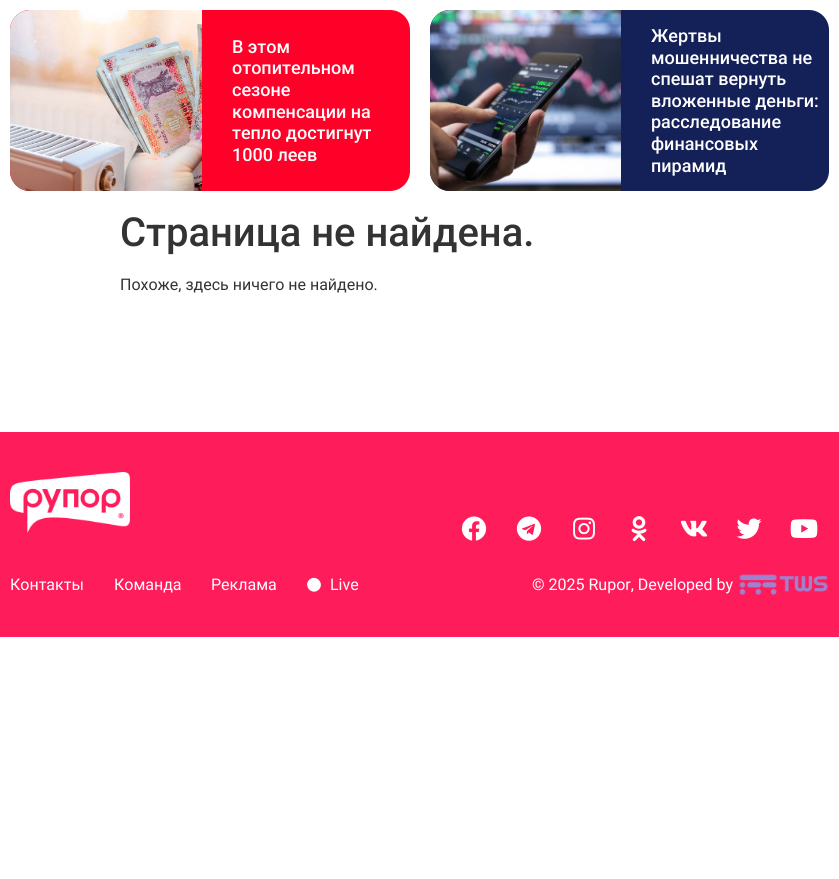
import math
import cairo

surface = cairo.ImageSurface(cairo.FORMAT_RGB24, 839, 879)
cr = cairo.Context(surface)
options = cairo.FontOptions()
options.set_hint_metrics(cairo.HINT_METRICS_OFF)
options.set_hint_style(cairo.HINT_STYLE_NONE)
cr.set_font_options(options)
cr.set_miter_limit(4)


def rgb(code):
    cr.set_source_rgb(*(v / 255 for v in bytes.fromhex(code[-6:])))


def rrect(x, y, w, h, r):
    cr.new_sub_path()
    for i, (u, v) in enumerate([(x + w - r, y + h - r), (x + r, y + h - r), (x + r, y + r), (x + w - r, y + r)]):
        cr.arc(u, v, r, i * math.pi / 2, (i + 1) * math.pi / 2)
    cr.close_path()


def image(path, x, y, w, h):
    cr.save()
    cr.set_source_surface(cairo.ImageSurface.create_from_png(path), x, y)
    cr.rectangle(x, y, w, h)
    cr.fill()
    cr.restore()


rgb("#ffffff")
cr.paint()
rgb("#ff0028")
rrect(10, 10, 400, 181, 20)
cr.fill()
image("img/1.png", 10, 10, 192, 181)
rgb("#142158")
rrect(430, 10, 399, 181, 20)
cr.fill()
image("img/2.png", 430, 10, 191, 181)
rgb("#ff1c5b")
cr.rectangle(0, 432, 839, 205)
cr.fill()
image("img/3.png", 10, 472, 120, 61)
rgb("#ffffff")
cr.new_path()
cr.move_to(309, 580)
cr.curve_to(315.5, 573.5, 325, 583, 319, 589.5)
cr.curve_to(312.5, 596, 303, 586.5, 309, 580)
cr.close_path()
cr.fill()
image("img/4.png", 461, 516, 26, 25)
image("img/5.png", 516, 516, 26, 25)
image("img/6.png", 573, 517, 22, 23)
image("img/7.png", 631, 516, 16, 26)
image("img/8.png", 680, 520, 28, 17)
image("img/9.png", 736, 518, 26, 21)
image("img/10.png", 790, 519, 28, 19)
image("img/11.png", 739, 574, 89, 21)
cr.select_font_face("Roboto Medium")
cr.set_font_size(18)
for x, y, s in [
    (232, 53, "В этом"),
    (232, 74, "отопительном"),
    (232, 96, "сезоне"),
    (232, 118, "компенсации на"),
    (232, 139, "тепло достигнут"),
    (232, 161, "1000 леев"),
    (651, 42, "Жертвы"),
    (651, 64, "мошенничества не"),
    (651, 85, "спешат вернуть"),
    (651, 107, "вложенные деньги:"),
    (651, 128, "расследование"),
    (651, 150, "финансовых"),
    (651, 172, "пирамид"),
]:
    cr.move_to(x, y)
    cr.show_text(s)
cr.set_font_size(40)
rgb("#333333")
cr.move_to(120, 246)
cr.show_text("Страница не найдена.")
cr.select_font_face("Roboto")
cr.set_font_size(16)
cr.move_to(120, 290)
cr.show_text("Похоже, здесь ничего не найдено.")
rgb("#ffffff")
for x, y, s in [
    (10, 590, "Контакты"),
    (114, 590, "Команда"),
    (211, 590, "Реклама"),
    (330, 590, "Live"),
    (532, 590, "© 2025 Rupor, Developed by"),
]:
    cr.move_to(x, y)
    cr.show_text(s)
surface.write_to_png("page.png")
